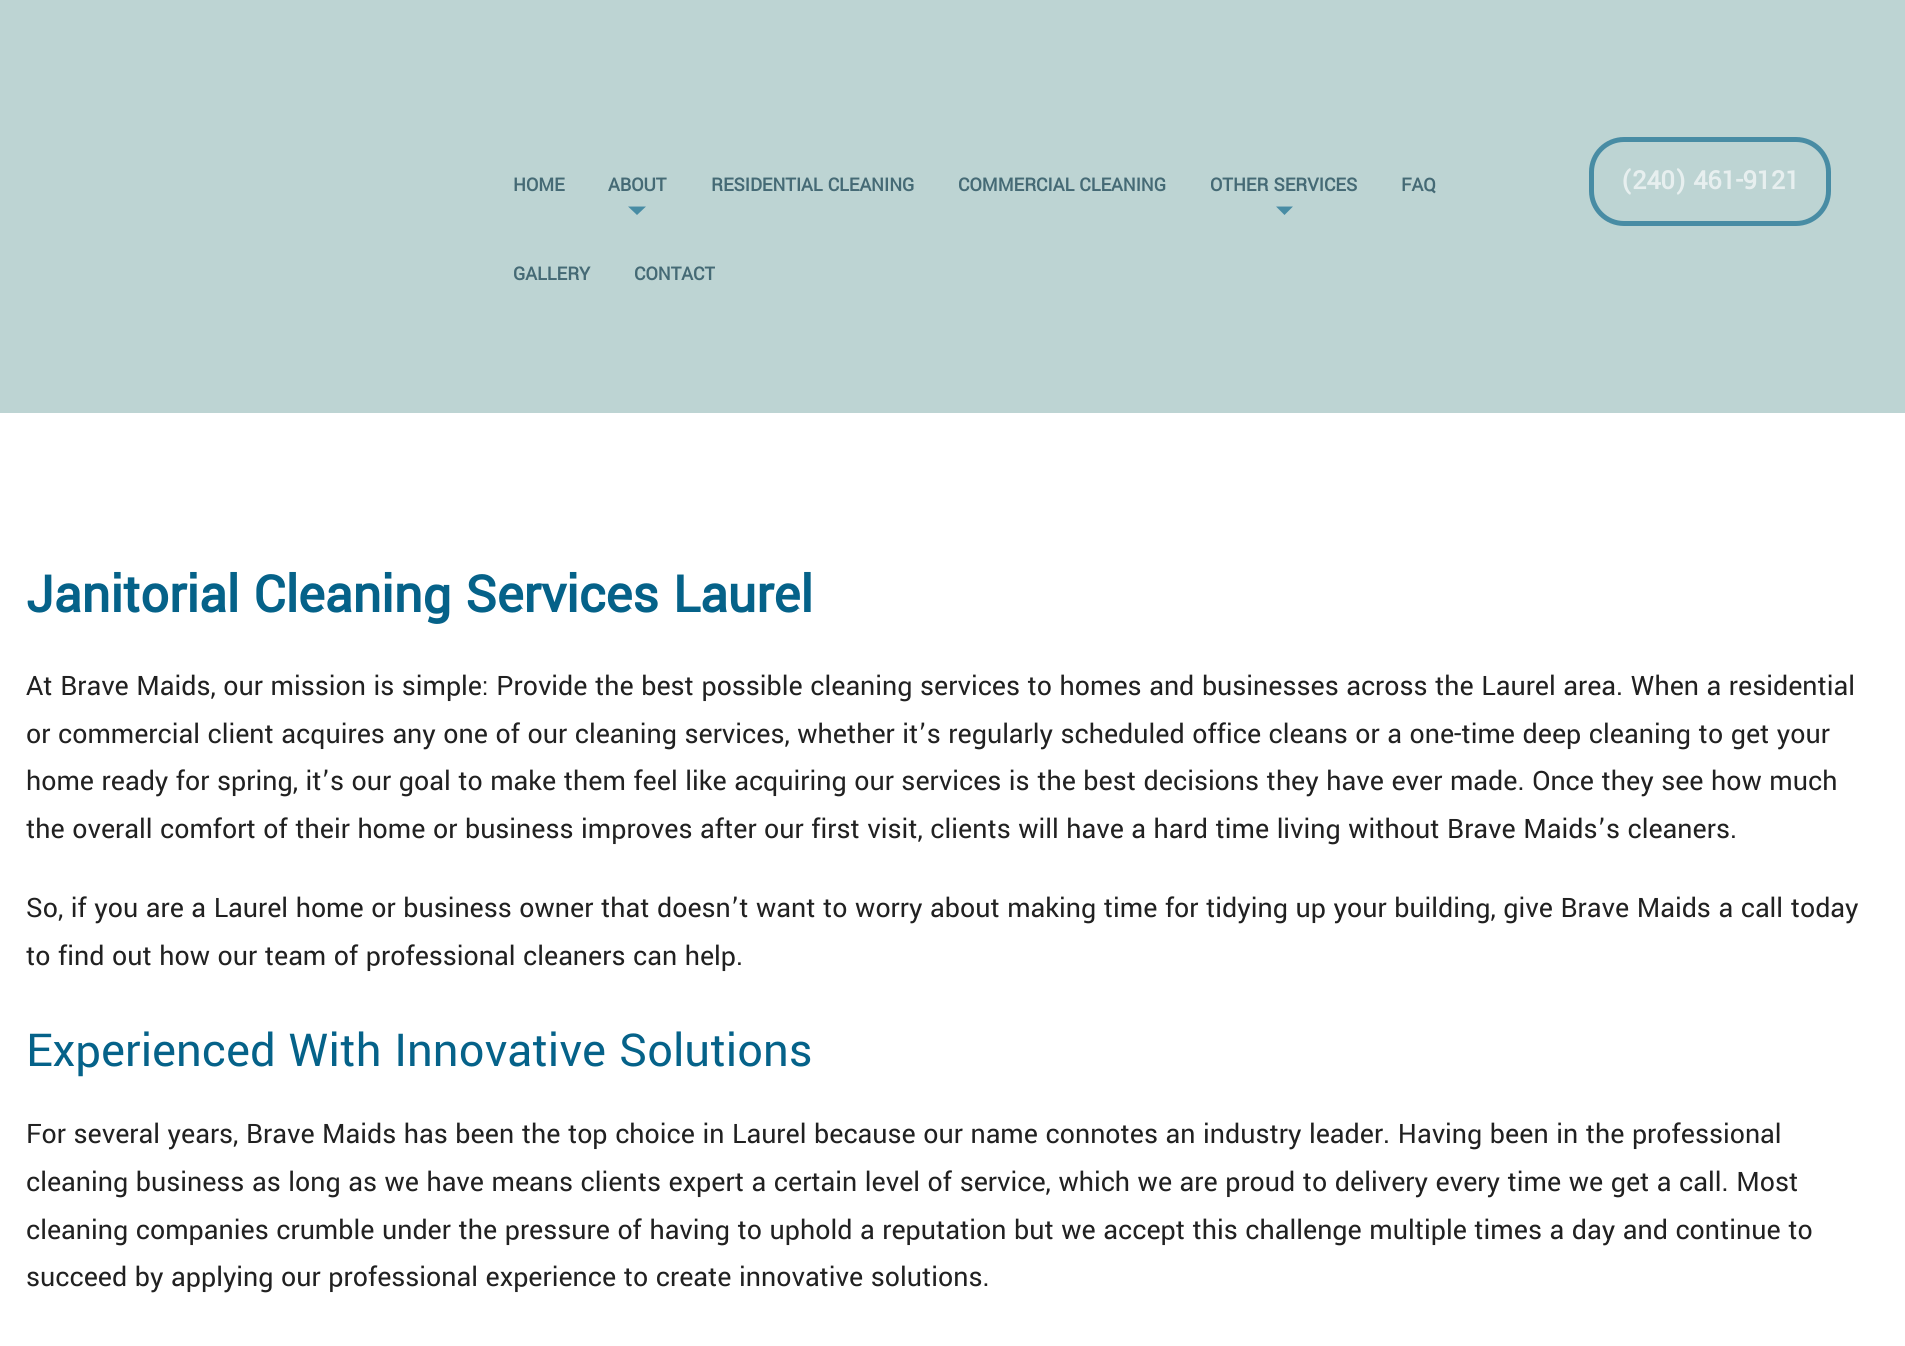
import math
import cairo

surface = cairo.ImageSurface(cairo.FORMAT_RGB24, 1905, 1346)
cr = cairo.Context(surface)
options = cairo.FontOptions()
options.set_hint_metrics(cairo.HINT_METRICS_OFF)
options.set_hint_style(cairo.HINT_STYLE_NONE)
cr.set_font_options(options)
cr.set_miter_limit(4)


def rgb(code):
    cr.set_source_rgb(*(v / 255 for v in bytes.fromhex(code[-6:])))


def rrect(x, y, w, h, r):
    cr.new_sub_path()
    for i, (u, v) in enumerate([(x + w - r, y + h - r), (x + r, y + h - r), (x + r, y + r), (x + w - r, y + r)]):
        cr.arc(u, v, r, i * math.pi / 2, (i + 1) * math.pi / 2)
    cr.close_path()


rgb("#ffffff")
cr.paint()
rgb("#bdd4d3")
cr.rectangle(0, 0, 1905, 413)
cr.fill()
rgb("#488ca4")
cr.new_path()
cr.move_to(628, 206.5)
cr.line_to(646, 206.5)
cr.line_to(637, 215)
cr.close_path()
cr.fill()
cr.new_path()
cr.move_to(1276, 206.5)
cr.line_to(1293, 206.5)
cr.line_to(1284.5, 215)
cr.close_path()
cr.fill()
rrect(1591.5, 139.5, 237, 84, 32.5)
cr.set_line_width(5)
cr.stroke()
cr.select_font_face("Yantramanav", cairo.FONT_SLANT_NORMAL, cairo.FONT_WEIGHT_BOLD)
cr.set_font_size(20.1)
rgb("#456a75")
for x, y, s in [
    (513, 191, "HOME"),
    (608, 191, "ABOUT"),
    (711, 191, "RESIDENTIAL CLEANING"),
    (958, 191, "COMMERCIAL CLEANING"),
    (1210, 191, "OTHER SERVICES"),
    (1401, 191, "FAQ"),
    (513, 280, "GALLERY"),
    (634, 280, "CONTACT"),
]:
    cr.move_to(x, y)
    cr.show_text(s)
cr.set_font_size(28)
rgb("#e7efef")
cr.move_to(1621, 189)
cr.show_text("(240) 461-9121")
cr.set_font_size(56)
rgb("#056289")
cr.move_to(26, 612)
cr.show_text("Janitorial Cleaning Services Laurel")
cr.select_font_face("Yantramanav")
cr.set_font_size(29.75)
rgb("#212121")
for x, y, s in [
    (26, 695, "At Brave Maids, our mission is simple: Provide the best possible cleaning services to homes and businesses across the Laurel area. When a residential"),
    (26, 743, "or commercial client acquires any one of our cleaning services, whether it’s regularly scheduled office cleans or a one-time deep cleaning to get your"),
    (26, 790, "home ready for spring, it’s our goal to make them feel like acquiring our services is the best decisions they have ever made. Once they see how much"),
    (26, 838, "the overall comfort of their home or business improves after our first visit, clients will have a hard time living without Brave Maids’s cleaners."),
    (26, 917, "So, if you are a Laurel home or business owner that doesn’t want to worry about making time for tidying up your building, give Brave Maids a call today"),
    (26, 965, "to find out how our team of professional cleaners can help."),
]:
    cr.move_to(x, y)
    cr.show_text(s)
cr.set_font_size(50.4)
rgb("#056289")
cr.move_to(26, 1066)
cr.show_text("Experienced With Innovative Solutions")
cr.set_font_size(29.75)
rgb("#212121")
for x, y, s in [
    (26, 1143, "For several years, Brave Maids has been the top choice in Laurel because our name connotes an industry leader. Having been in the professional"),
    (26, 1191, "cleaning business as long as we have means clients expert a certain level of service, which we are proud to delivery every time we get a call. Most"),
    (26, 1239, "cleaning companies crumble under the pressure of having to uphold a reputation but we accept this challenge multiple times a day and continue to"),
    (26, 1286, "succeed by applying our professional experience to create innovative solutions."),
]:
    cr.move_to(x, y)
    cr.show_text(s)
surface.write_to_png("page.png")
